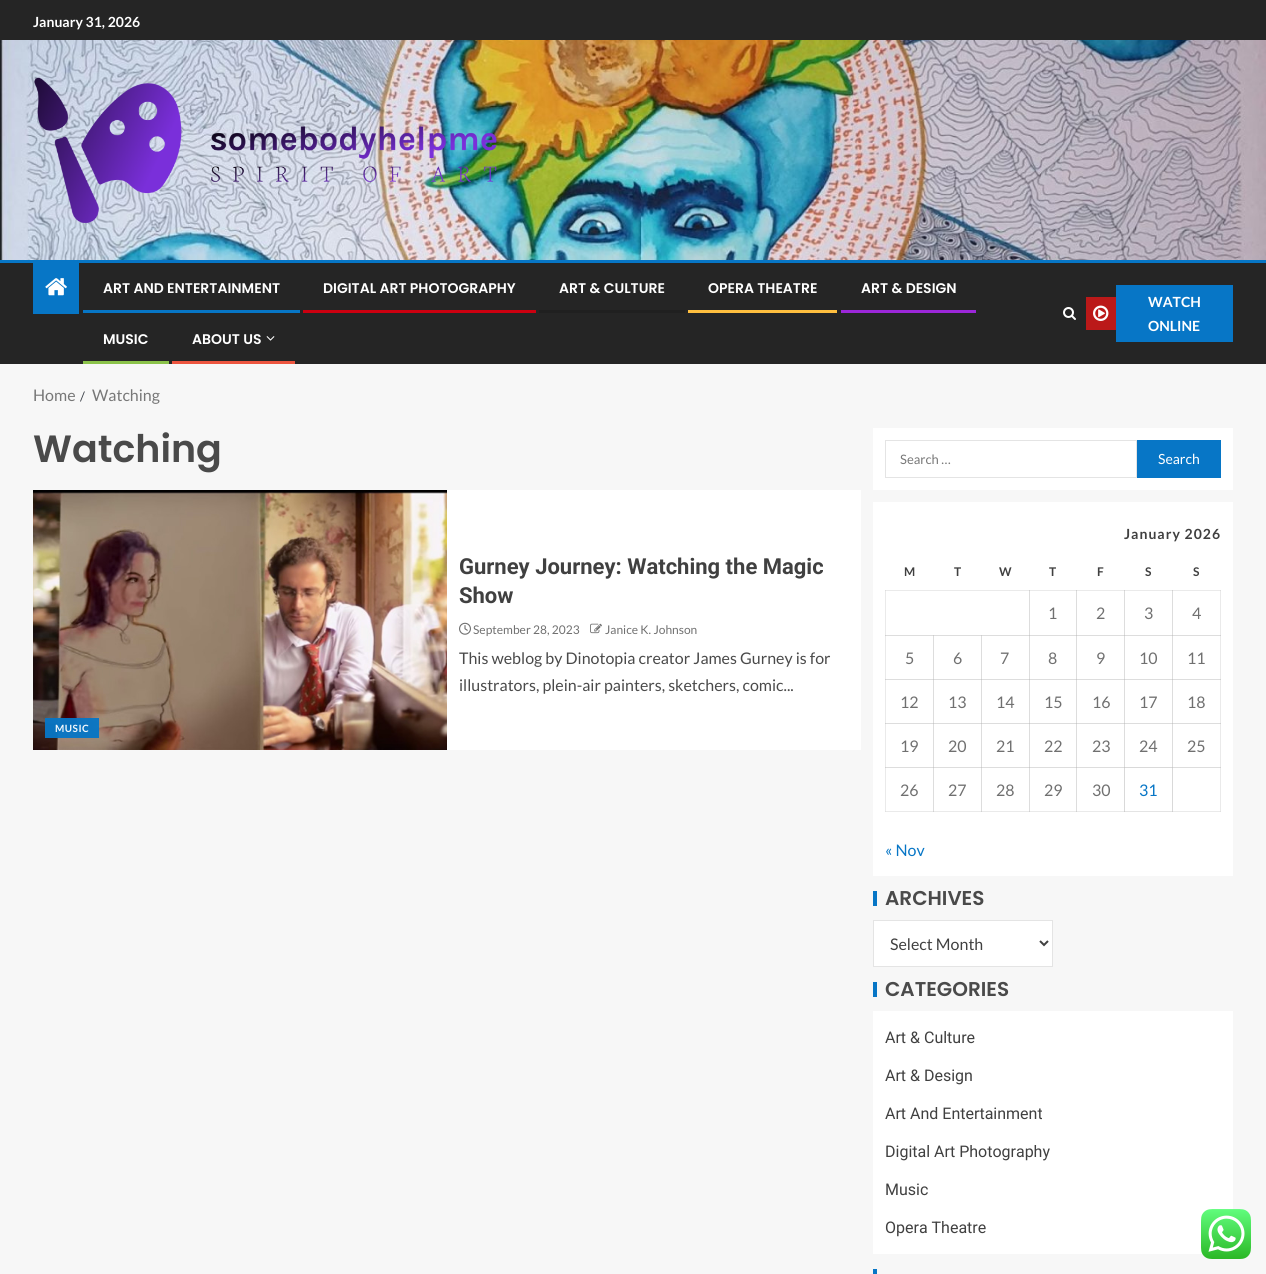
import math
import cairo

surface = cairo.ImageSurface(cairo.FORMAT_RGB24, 1266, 1274)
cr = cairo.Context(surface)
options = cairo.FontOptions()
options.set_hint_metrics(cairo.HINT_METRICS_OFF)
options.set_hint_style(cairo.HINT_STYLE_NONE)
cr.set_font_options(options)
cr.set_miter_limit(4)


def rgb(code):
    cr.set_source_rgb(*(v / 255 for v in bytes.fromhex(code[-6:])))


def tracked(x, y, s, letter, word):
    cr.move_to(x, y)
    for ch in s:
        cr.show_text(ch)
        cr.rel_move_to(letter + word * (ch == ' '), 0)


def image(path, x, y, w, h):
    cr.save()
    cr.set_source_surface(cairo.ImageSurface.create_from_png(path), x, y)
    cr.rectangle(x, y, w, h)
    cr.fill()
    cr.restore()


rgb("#f7f7f7")
cr.paint()
rgb("#252525")
cr.rectangle(0, 0, 1266, 40)
cr.fill()
image("img/1.png", 0, 40, 1266, 220)
image("img/2.png", 34, 77, 463, 146)
for x, y, w, h, color in [
    (0, 263, 1266, 101, "#252525"),
    (0, 260, 1266, 3, "#0776c6"),
    (33, 263, 46, 51, "#0776c6"),
]:
    rgb(color)
    cr.rectangle(x, y, w, h)
    cr.fill()
image("img/3.png", 45, 278, 22, 18)
for x, y, w, h, color in [
    (83, 310, 217, 3, "#0776c6"),
    (303, 310, 233, 3, "#cc0010"),
    (539, 310, 146, 3, "#202020"),
    (688, 310, 149, 3, "#ffbf3f"),
    (841, 310, 135, 3, "#9c27d9"),
    (83, 361, 86, 3, "#8bc34a"),
]:
    rgb(color)
    cr.rectangle(x, y, w, h)
    cr.fill()
image("img/4.png", 266, 336, 9, 5)
rgb("#ed553f")
cr.rectangle(172, 361, 123, 3)
cr.fill()
image("img/5.png", 1063, 307, 13, 13)
rgb("#bb1919")
cr.rectangle(1086, 297, 30, 33)
cr.fill()
image("img/6.png", 1093, 305, 16, 16)
rgb("#0776c6")
cr.rectangle(1116, 285, 117, 57)
cr.fill()
rgb("#ffffff")
cr.rectangle(447, 490, 414, 260)
cr.fill()
image("img/7.png", 459, 622, 12, 13)
image("img/8.png", 590, 623, 12, 11)
image("img/9.png", 33, 490, 414, 260)
cr.set_source_rgba(0.027, 0.463, 0.776, 0.95)
cr.rectangle(45, 718, 54, 20)
cr.fill()
rgb("#ffffff")
cr.rectangle(873, 428, 360, 62)
cr.fill()
cr.rectangle(885.5, 440.5, 251, 37)
rgb("#e4e4e4")
cr.set_line_width(1)
cr.stroke()
for x, y, w, h, color in [
    (1137, 440, 84, 38, "#0776c6"),
    (873, 502, 360, 374, "#ffffff"),
    (885, 590, 1, 222, "#eaeaea"),
    (885, 590, 145, 1, "#eaeaea"),
    (885, 590, 1, 1, "#dddddd"),
    (1029, 590, 1, 46, "#dddddd"),
    (1029, 590, 48, 1, "#eaeaea"),
    (1029, 590, 1, 1, "#d0d0d0"),
    (1076, 590, 1, 46, "#dddddd"),
    (1076, 590, 49, 1, "#eaeaea"),
    (1076, 590, 1, 1, "#d0d0d0"),
    (1124, 590, 1, 46, "#dddddd"),
    (1124, 590, 49, 1, "#eaeaea"),
    (1124, 590, 1, 1, "#d0d0d0"),
    (1172, 590, 1, 46, "#dddddd"),
    (1220, 590, 1, 178, "#eaeaea"),
    (885, 635, 49, 1, "#dddddd"),
    (885, 635, 1, 1, "#d0d0d0"),
    (933, 635, 1, 45, "#dddddd"),
    (933, 635, 49, 1, "#dddddd"),
    (933, 635, 1, 1, "#cdcdcd"),
    (981, 635, 1, 45, "#dddddd"),
    (981, 635, 49, 1, "#dddddd"),
    (981, 635, 1, 1, "#cdcdcd"),
    (1029, 635, 1, 45, "#dddddd"),
    (1029, 635, 48, 1, "#dddddd"),
    (1029, 635, 1, 1, "#c9c9c9"),
    (1076, 635, 1, 45, "#dddddd"),
    (1076, 635, 49, 1, "#dddddd"),
    (1076, 635, 1, 1, "#c9c9c9"),
    (1124, 635, 1, 45, "#dddddd"),
    (1124, 635, 49, 1, "#dddddd"),
    (1124, 635, 1, 1, "#c9c9c9"),
    (1172, 635, 1, 45, "#dddddd"),
    (885, 679, 49, 1, "#dddddd"),
    (885, 679, 1, 1, "#d0d0d0"),
    (933, 679, 1, 45, "#dddddd"),
    (933, 679, 49, 1, "#dddddd"),
    (933, 679, 1, 1, "#c9c9c9"),
    (981, 679, 1, 45, "#dddddd"),
    (981, 679, 49, 1, "#dddddd"),
    (981, 679, 1, 1, "#c9c9c9"),
    (1029, 679, 1, 45, "#dddddd"),
    (1029, 679, 48, 1, "#dddddd"),
    (1029, 679, 1, 1, "#c9c9c9"),
    (1076, 679, 1, 45, "#dddddd"),
    (1076, 679, 49, 1, "#dddddd"),
    (1076, 679, 1, 1, "#c9c9c9"),
    (1124, 679, 1, 45, "#dddddd"),
    (1124, 679, 49, 1, "#dddddd"),
    (1124, 679, 1, 1, "#c9c9c9"),
    (1172, 679, 1, 45, "#dddddd"),
    (885, 723, 49, 1, "#dddddd"),
    (885, 723, 1, 1, "#d0d0d0"),
    (933, 723, 1, 45, "#dddddd"),
    (933, 723, 49, 1, "#dddddd"),
    (933, 723, 1, 1, "#c9c9c9"),
    (981, 723, 1, 45, "#dddddd"),
    (981, 723, 49, 1, "#dddddd"),
    (981, 723, 1, 1, "#c9c9c9"),
    (1029, 723, 1, 45, "#dddddd"),
    (1029, 723, 48, 1, "#dddddd"),
    (1029, 723, 1, 1, "#c9c9c9"),
    (1076, 723, 1, 45, "#dddddd"),
    (1076, 723, 49, 1, "#dddddd"),
    (1076, 723, 1, 1, "#c9c9c9"),
    (1124, 723, 1, 45, "#dddddd"),
    (1124, 723, 49, 1, "#dddddd"),
    (1124, 723, 1, 1, "#c9c9c9"),
    (1172, 723, 1, 45, "#dddddd"),
    (885, 811, 49, 1, "#eaeaea"),
    (885, 811, 1, 1, "#e0e0e0"),
    (885, 767, 49, 1, "#dddddd"),
    (885, 767, 1, 1, "#d1d1d1"),
    (933, 767, 1, 45, "#dddddd"),
    (933, 811, 49, 1, "#eaeaea"),
    (933, 811, 1, 1, "#d1d1d1"),
    (933, 767, 49, 1, "#dddddd"),
    (933, 767, 1, 1, "#c9c9c9"),
    (981, 767, 1, 45, "#dddddd"),
    (981, 811, 49, 1, "#eaeaea"),
    (981, 811, 1, 1, "#d1d1d1"),
    (981, 767, 49, 1, "#dddddd"),
    (981, 767, 1, 1, "#c9c9c9"),
    (1029, 767, 1, 45, "#dddddd"),
    (1029, 811, 48, 1, "#eaeaea"),
    (1029, 811, 1, 1, "#d1d1d1"),
    (1029, 767, 48, 1, "#dddddd"),
    (1029, 767, 1, 1, "#c9c9c9"),
    (1076, 767, 1, 45, "#dddddd"),
    (1076, 811, 49, 1, "#eaeaea"),
    (1076, 811, 1, 1, "#d1d1d1"),
    (1076, 767, 49, 1, "#dddddd"),
    (1076, 767, 1, 1, "#c9c9c9"),
    (1124, 767, 1, 45, "#d9d9d9"),
    (1124, 811, 49, 1, "#e4e4e4"),
    (1124, 811, 1, 1, "#cdcdcd"),
    (1124, 767, 49, 1, "#d9d9d9"),
    (1124, 767, 1, 1, "#c9c9c9"),
    (1172, 767, 1, 45, "#d9d9d9"),
    (1172, 811, 49, 1, "#eaeaea"),
    (1172, 811, 1, 1, "#cecece"),
    (1220, 767, 1, 45, "#eaeaea"),
    (1220, 811, 1, 1, "#e0e0e0"),
    (1172, 590, 49, 1, "#eaeaea"),
    (1172, 590, 1, 1, "#d0d0d0"),
    (1220, 590, 1, 1, "#dddddd"),
    (1172, 635, 49, 1, "#dddddd"),
    (1172, 635, 1, 1, "#c9c9c9"),
    (1220, 635, 1, 1, "#d0d0d0"),
    (1172, 679, 49, 1, "#dddddd"),
    (1172, 679, 1, 1, "#c9c9c9"),
    (1220, 679, 1, 1, "#d0d0d0"),
    (1172, 723, 49, 1, "#dddddd"),
    (1172, 723, 1, 1, "#c9c9c9"),
    (1220, 723, 1, 1, "#d0d0d0"),
    (1172, 767, 49, 1, "#dddddd"),
    (1172, 767, 1, 1, "#c9c9c9"),
    (1220, 767, 1, 1, "#d1d1d1"),
    (873, 891, 4, 15, "#0776c6"),
]:
    rgb(color)
    cr.rectangle(x, y, w, h)
    cr.fill()
rgb("#ffffff")
cr.rectangle(873.5, 920.5, 179, 46)
cr.fill_preserve()
rgb("#e4e4e4")
cr.stroke()
cr.new_path()
cr.move_to(1040, 941)
cr.line_to(1044, 945)
cr.line_to(1048, 941)
rgb("#404040")
cr.set_line_width(2)
cr.stroke()
for x, y, w, h, color in [
    (873, 982, 4, 15, "#0776c6"),
    (873, 1011, 360, 243, "#ffffff"),
    (873, 1269, 4, 5, "#0776c6"),
]:
    rgb(color)
    cr.rectangle(x, y, w, h)
    cr.fill()
image("img/10.png", 1201, 1209, 50, 50)
cr.select_font_face("Lato", cairo.FONT_SLANT_NORMAL, cairo.FONT_WEIGHT_BOLD)
cr.set_font_size(14)
rgb("#ffffff")
cr.move_to(33, 27)
cr.show_text("January 31, 2026")
cr.select_font_face("Poppins SemiBold")
for x, y, s in [
    (103, 293, "ART AND ENTERTAINMENT"),
    (323, 293, "DIGITAL ART PHOTOGRAPHY"),
    (559, 293, "ART & CULTURE"),
    (708, 293, "OPERA THEATRE"),
    (861, 293, "ART & DESIGN"),
    (103, 344, "MUSIC"),
    (192, 344, "ABOUT US"),
]:
    cr.move_to(x, y)
    cr.show_text(s)
cr.select_font_face("Lato", cairo.FONT_SLANT_NORMAL, cairo.FONT_WEIGHT_BOLD)
cr.move_to(1148, 307)
cr.show_text("WATCH")
cr.move_to(1148, 331)
cr.show_text("ONLINE")
cr.select_font_face("Lato")
cr.set_font_size(16)
rgb("#777777")
cr.move_to(33, 401)
cr.show_text("Home")
cr.set_font_size(13)
rgb("#393e46")
cr.move_to(80, 401)
cr.show_text("/")
cr.set_font_size(16)
rgb("#777777")
cr.move_to(92, 401)
cr.show_text("Watching")
cr.select_font_face("Poppins SemiBold")
cr.set_font_size(38)
rgb("#4a4a4a")
cr.move_to(33, 462)
cr.show_text("Watching")
cr.select_font_face("Roboto", cairo.FONT_SLANT_NORMAL, cairo.FONT_WEIGHT_BOLD)
cr.set_font_size(22)
rgb("#404040")
cr.move_to(459, 574)
cr.show_text("Gurney Journey: Watching the Magic")
cr.move_to(459, 603)
cr.show_text("Show")
cr.select_font_face("Lato")
cr.set_font_size(12)
rgb("#707070")
cr.move_to(473, 634)
cr.show_text("September 28, 2023")
cr.move_to(605, 634)
cr.show_text("Janice K. Johnson")
cr.set_font_size(16)
rgb("#4a4a4a")
cr.move_to(459, 664)
cr.show_text("This weblog by Dinotopia creator James Gurney is for")
cr.move_to(459, 691)
cr.show_text("illustrators, plein-air painters, sketchers, comic...")
cr.select_font_face("Lato", cairo.FONT_SLANT_NORMAL, cairo.FONT_WEIGHT_BOLD)
cr.set_font_size(10)
rgb("#f3f8fc")
tracked(55, 732, "MUSIC", 0.5, 0)
cr.select_font_face("Lato")
cr.set_font_size(13)
rgb("#777777")
cr.move_to(900, 464)
cr.show_text("Search …")
cr.set_font_size(14)
rgb("#ffffff")
cr.move_to(1158, 464)
cr.show_text("Search")
cr.select_font_face("Lato", cairo.FONT_SLANT_NORMAL, cairo.FONT_WEIGHT_BOLD)
rgb("#404040")
tracked(1124, 539, "January 2026", 1, 0)
cr.set_font_size(12)
for x, y, s in [
    (904, 576, "M"),
    (954, 576, "T"),
    (999, 576, "W"),
    (1049, 576, "T"),
    (1097, 576, "F"),
    (1145, 576, "S"),
    (1193, 576, "S"),
]:
    cr.move_to(x, y)
    cr.show_text(s)
cr.select_font_face("Lato")
cr.set_font_size(16)
rgb("#707070")
for x, y, s in [
    (1048, 619, "1"),
    (1096, 619, "2"),
    (1144, 619, "3"),
    (1192, 619, "4"),
    (905, 664, "5"),
    (953, 664, "6"),
    (1000, 664, "7"),
    (1048, 664, "8"),
    (1096, 664, "9"),
    (1139, 664, "10"),
    (1187, 664, "11"),
    (900, 708, "12"),
    (948, 708, "13"),
    (996, 708, "14"),
    (1044, 708, "15"),
    (1092, 708, "16"),
    (1139, 708, "17"),
    (1187, 708, "18"),
    (900, 752, "19"),
    (948, 752, "20"),
    (996, 752, "21"),
    (1044, 752, "22"),
    (1092, 752, "23"),
    (1139, 752, "24"),
    (1187, 752, "25"),
    (900, 796, "26"),
    (948, 796, "27"),
    (996, 796, "28"),
    (1044, 796, "29"),
    (1092, 796, "30"),
]:
    cr.move_to(x, y)
    cr.show_text(s)
rgb("#0776c6")
cr.move_to(1139, 796)
cr.show_text("31")
cr.move_to(885, 856)
cr.show_text("« Nov")
cr.select_font_face("Poppins SemiBold")
cr.set_font_size(20)
rgb("#4a4a4a")
cr.move_to(885, 905)
cr.show_text("ARCHIVES")
cr.select_font_face("Lato")
cr.set_font_size(16)
rgb("#404040")
cr.move_to(890, 950)
cr.show_text("Select Month")
cr.select_font_face("Poppins SemiBold")
cr.set_font_size(20)
rgb("#4a4a4a")
cr.move_to(885, 996)
cr.show_text("CATEGORIES")
cr.select_font_face("Roboto")
cr.set_font_size(16)
rgb("#404040")
for x, y, s in [
    (885, 1043, "Art & Culture"),
    (885, 1081, "Art & Design"),
    (885, 1119, "Art And Entertainment"),
    (885, 1157, "Digital Art Photography"),
    (885, 1195, "Music"),
    (885, 1233, "Opera Theatre"),
]:
    cr.move_to(x, y)
    cr.show_text(s)
surface.write_to_png("page.png")
